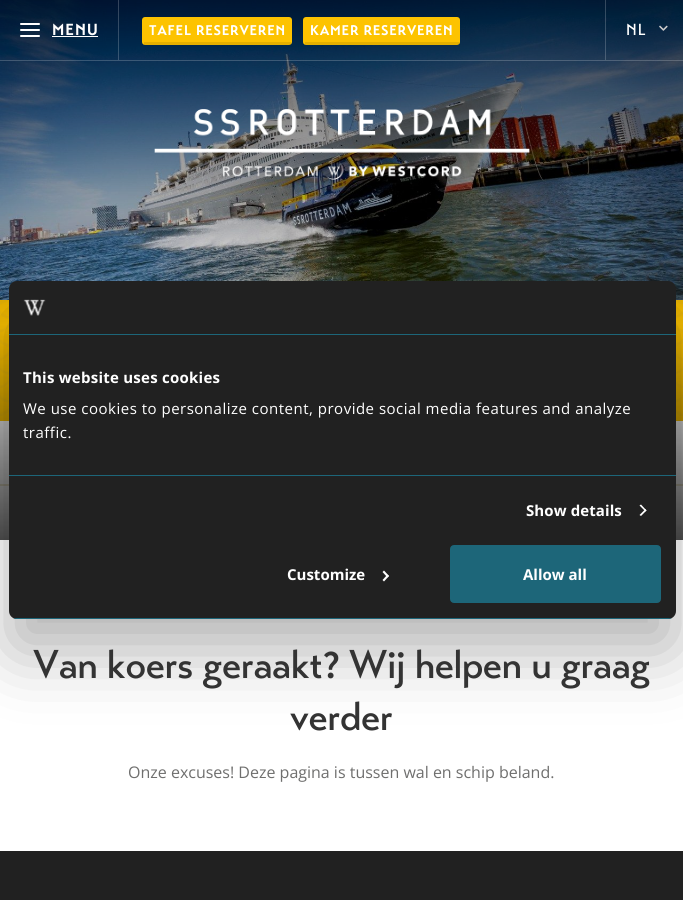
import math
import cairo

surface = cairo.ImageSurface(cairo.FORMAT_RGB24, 683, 900)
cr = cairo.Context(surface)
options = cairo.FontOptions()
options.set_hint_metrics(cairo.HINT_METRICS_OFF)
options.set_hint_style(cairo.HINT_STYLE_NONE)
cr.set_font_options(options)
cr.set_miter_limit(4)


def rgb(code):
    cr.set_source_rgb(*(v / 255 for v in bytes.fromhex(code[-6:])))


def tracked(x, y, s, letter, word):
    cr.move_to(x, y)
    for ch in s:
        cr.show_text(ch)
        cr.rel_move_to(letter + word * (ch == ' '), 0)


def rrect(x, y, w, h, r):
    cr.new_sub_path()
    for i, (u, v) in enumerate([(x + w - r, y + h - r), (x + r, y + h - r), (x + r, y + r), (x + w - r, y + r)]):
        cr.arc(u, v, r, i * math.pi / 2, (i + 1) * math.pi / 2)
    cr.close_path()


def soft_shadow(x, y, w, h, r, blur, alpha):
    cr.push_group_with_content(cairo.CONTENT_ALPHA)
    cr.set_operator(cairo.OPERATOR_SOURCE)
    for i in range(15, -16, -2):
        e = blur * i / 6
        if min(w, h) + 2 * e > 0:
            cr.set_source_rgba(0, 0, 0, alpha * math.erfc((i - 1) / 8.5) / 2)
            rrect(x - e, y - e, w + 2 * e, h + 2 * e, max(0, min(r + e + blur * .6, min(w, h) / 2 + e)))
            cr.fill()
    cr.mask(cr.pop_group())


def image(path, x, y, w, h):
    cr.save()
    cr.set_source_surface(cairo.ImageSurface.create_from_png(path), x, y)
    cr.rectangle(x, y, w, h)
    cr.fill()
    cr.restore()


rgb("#ffffff")
cr.paint()
image("img/1.png", 0, 0, 683, 300)
rgb("#fdc300")
cr.rectangle(0, 300, 683, 121)
cr.fill()
image("img/4.png", 0, 300, 683, 116)
rgb("#efe8cf")
cr.rectangle(0, 484, 683, 2)
cr.fill()
gradient = cairo.LinearGradient(341, 0, 342, 540)
gradient.add_color_stop_rgba(0, 0, 0, 0, 0.7)
gradient.add_color_stop_rgba(0.4, 0, 0, 0, 0.25)
gradient.add_color_stop_rgba(0.6, 0, 0, 0, 0)
gradient.add_color_stop_rgba(1, 0, 0, 0, 0.7)
cr.set_source(gradient)
cr.rectangle(0, 0, 683, 540)
cr.fill()
cr.set_source_rgba(1, 1, 1, 0.2)
cr.rectangle(0, 60, 683, 1)
cr.fill()
cr.rectangle(118, 0, 1, 60)
cr.fill()
rgb("#ffffff")
rrect(20, 23, 20, 2, 1)
cr.fill()
rrect(20, 29, 20, 2, 1)
cr.fill()
rrect(20, 35, 20, 2, 1)
cr.fill()
cr.rectangle(52, 36, 46, 1)
cr.fill()
rgb("#fdc300")
rrect(142, 17, 150, 28, 3)
cr.fill()
cr.set_source_rgba(0, 0, 0, 0.1)
cr.rectangle(144, 42, 147, 3)
cr.fill()
rgb("#fdc300")
rrect(303, 17, 157, 28, 3)
cr.fill()
cr.set_source_rgba(0, 0, 0, 0.1)
cr.rectangle(305, 42, 154, 3)
cr.fill()
cr.set_source_rgba(1, 1, 1, 0.2)
cr.rectangle(605, 0, 1, 60)
cr.fill()
image("img/2.png", 659, 25, 9, 6)
image("img/3.png", 154, 109, 376, 71)
rgb("#000000")
soft_shadow(9, 313, 667, 338, 8, 34, 0.3)
rgb("#212121")
rrect(9, 281, 667, 338, 8)
cr.fill()
rgb("#1d6679")
cr.rectangle(9, 334, 667, 1)
cr.fill()
image("img/5.png", 23, 299, 23, 17)
cr.rectangle(9, 475, 667, 1)
cr.fill()
rgb("#ffffff")
cr.new_path()
cr.move_to(641, 504.5)
cr.line_to(646.5, 510.5)
cr.line_to(645.5, 511.5)
cr.line_to(639.5, 505.5)
cr.close_path()
cr.fill()
cr.new_path()
cr.move_to(645.5, 509)
cr.line_to(646.5, 510.5)
cr.line_to(641, 516)
cr.line_to(639.5, 515)
cr.close_path()
cr.fill()
cr.save()
rrect(9, 281, 667, 338, 8)
cr.clip()
rgb("#1d6679")
cr.rectangle(9, 618, 667, 1)
cr.fill()
cr.restore()
cr.new_path()
cr.move_to(384, 570.5)
cr.line_to(389, 576)
cr.line_to(387.5, 577.5)
cr.line_to(382.5, 572)
cr.close_path()
cr.fill()
cr.new_path()
cr.move_to(387.5, 574.5)
cr.line_to(389, 576)
cr.line_to(384, 581.5)
cr.line_to(382.5, 580)
cr.close_path()
cr.fill()
rgb("#1d6679")
rrect(451, 546, 209, 56, 3)
cr.fill_preserve()
cr.stroke()
rgb("#212121")
cr.rectangle(0, 851, 683, 49)
cr.fill()
cr.select_font_face("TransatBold", cairo.FONT_SLANT_NORMAL, cairo.FONT_WEIGHT_BOLD)
cr.set_font_size(16)
rgb("#ffffff")
tracked(52, 35, "MENU", 1, 0)
cr.set_font_size(14)
tracked(149, 35, "TAFEL RESERVEREN", 0.75, 0)
tracked(310, 35, "KAMER RESERVEREN", 0.75, 0)
cr.select_font_face("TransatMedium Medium")
cr.set_font_size(16)
tracked(626, 35, "NL", 1, 0)
cr.select_font_face("Open Sans", cairo.FONT_SLANT_NORMAL, cairo.FONT_WEIGHT_BOLD)
cr.set_font_size(15)
tracked(23, 383, "This website uses cookies", 0.25, 0)
cr.select_font_face("Open Sans")
tracked(23, 414, "We use cookies to personalize content, provide social media features and analyze", 0.5, 0)
tracked(23, 438, "traffic.", 0.5, 0)
cr.select_font_face("Open Sans", cairo.FONT_SLANT_NORMAL, cairo.FONT_WEIGHT_BOLD)
tracked(526, 516, "Show details", 0.1, 0)
cr.move_to(287, 580)
cr.show_text("Customize")
cr.move_to(523, 580)
cr.show_text("Allow all")
cr.select_font_face("TransatMedium Medium")
cr.set_font_size(40)
rgb("#333333")
cr.move_to(33, 678)
cr.show_text("Van koers geraakt? Wij helpen u graag")
cr.move_to(290, 730)
cr.show_text("verder")
cr.select_font_face("Open Sans")
cr.set_font_size(16)
rgb("#6f6f6e")
cr.move_to(128, 778)
cr.show_text("Onze excuses! Deze pagina is tussen wal en schip beland.")
surface.write_to_png("page.png")
